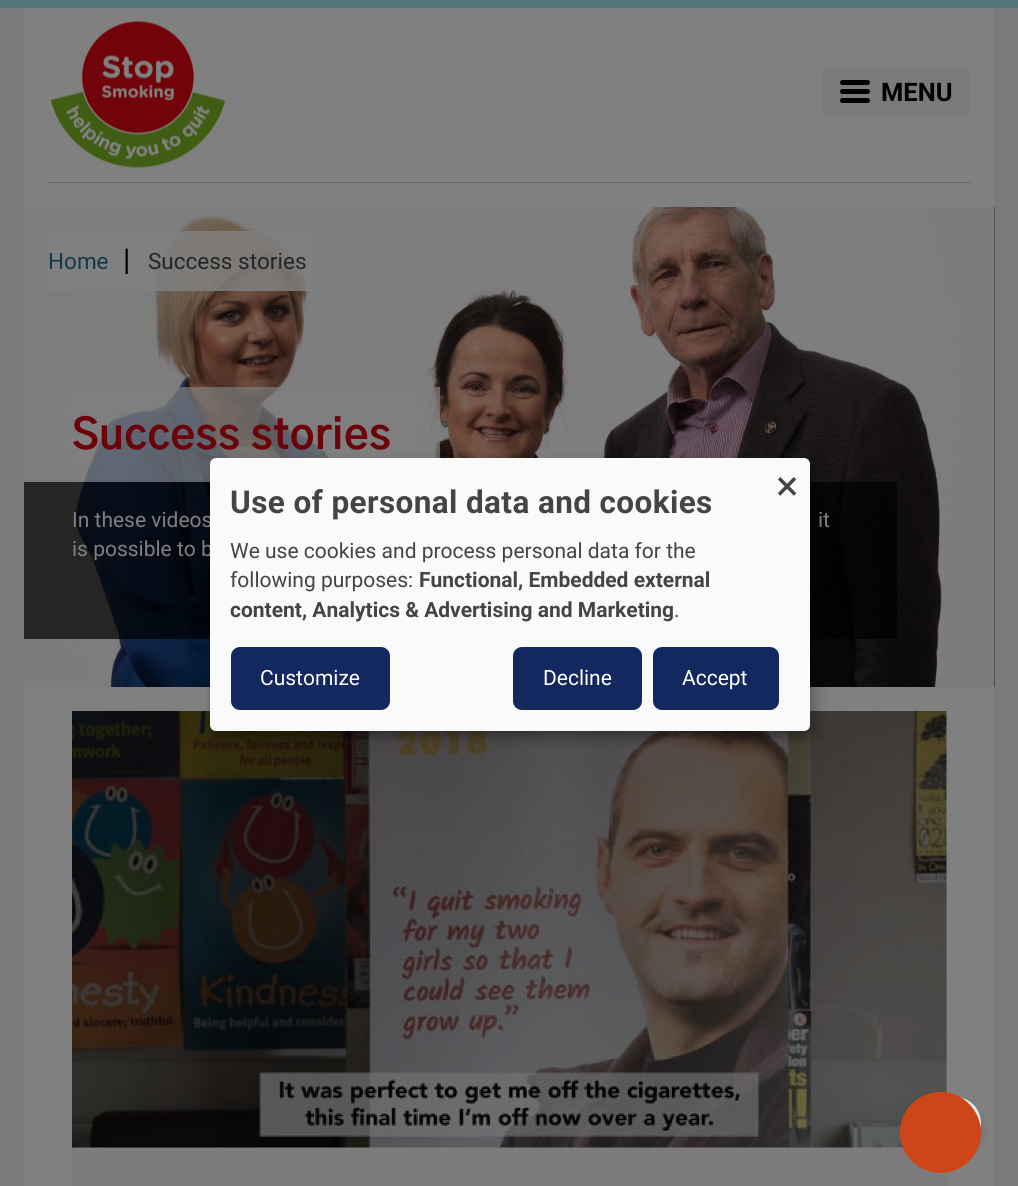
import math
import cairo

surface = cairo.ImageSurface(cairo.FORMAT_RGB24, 1018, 1186)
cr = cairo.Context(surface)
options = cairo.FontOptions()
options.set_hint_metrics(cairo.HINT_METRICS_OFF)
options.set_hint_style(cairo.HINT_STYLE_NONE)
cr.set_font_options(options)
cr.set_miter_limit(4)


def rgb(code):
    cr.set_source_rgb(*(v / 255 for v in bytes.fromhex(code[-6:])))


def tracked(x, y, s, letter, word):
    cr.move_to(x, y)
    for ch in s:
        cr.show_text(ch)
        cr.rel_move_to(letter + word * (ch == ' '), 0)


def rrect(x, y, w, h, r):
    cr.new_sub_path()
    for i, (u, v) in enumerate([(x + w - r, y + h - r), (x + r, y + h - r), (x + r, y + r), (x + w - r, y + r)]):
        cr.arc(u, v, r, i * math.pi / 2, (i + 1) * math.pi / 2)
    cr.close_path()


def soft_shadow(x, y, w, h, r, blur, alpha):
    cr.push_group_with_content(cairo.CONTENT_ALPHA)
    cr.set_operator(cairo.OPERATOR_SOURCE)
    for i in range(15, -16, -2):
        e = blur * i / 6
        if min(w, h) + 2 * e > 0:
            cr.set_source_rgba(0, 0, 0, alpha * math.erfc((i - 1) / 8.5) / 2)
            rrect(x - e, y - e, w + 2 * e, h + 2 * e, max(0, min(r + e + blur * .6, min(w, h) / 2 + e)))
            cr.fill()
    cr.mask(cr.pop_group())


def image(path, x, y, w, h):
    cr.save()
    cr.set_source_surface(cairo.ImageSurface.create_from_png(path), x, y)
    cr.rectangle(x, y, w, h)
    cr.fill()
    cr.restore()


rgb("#527578")
cr.paint()
for x, y, w, h, color in [
    (0, 8, 1018, 1178, "#7c7a78"),
    (24, 8, 971, 1178, "#808080"),
    (48, 182, 923, 1, "#686868"),
]:
    rgb(color)
    cr.rectangle(x, y, w, h)
    cr.fill()
image("img/1.png", 50, 20, 176, 148)
rgb("#7c7a78")
rrect(821, 68, 150, 48, 6)
cr.fill()
rgb("#000000")
rrect(840, 80, 30, 5, 2.5)
cr.fill()
rrect(840, 89, 30, 5, 2.5)
cr.fill()
rrect(840, 98, 30, 5, 2.5)
cr.fill()
rgb("#1f2828")
cr.rectangle(994, 207, 1, 480)
cr.fill()
image("img/2.png", 24, 207, 971, 480)
cr.set_source_rgba(0.502, 0.502, 0.502, 0.85)
cr.rectangle(48, 231, 267, 60)
cr.fill()
cr.set_source_rgba(0.502, 0.502, 0.502, 0.7)
cr.rectangle(30, 387, 410, 95)
cr.fill()
cr.set_source_rgba(0, 0, 0, 0.7)
cr.rectangle(24, 482, 873, 157)
cr.fill()
rgb("#7c7c7c")
cr.rectangle(72, 711, 875, 475)
cr.fill()
image("img/3.png", 72, 711, 875, 437)
rgb("#000000")
soft_shadow(218, 465, 600, 273, 6, 7.5, 0.19)
soft_shadow(210, 464, 600, 273, 6, 4.5, 0.2)
soft_shadow(929, 1104, 52, 53, 26, 4, 0.2)
rgb("#ffffff")
cr.arc(955, 1123, 25, 0, 2 * math.pi)
cr.fill_preserve()
rgb("#eaeaea")
cr.stroke()
rgb("#cd4518")
cr.arc(940.5, 1132.5, 40.5, 0, 2 * math.pi)
cr.fill()
cr.select_font_face("Roboto", cairo.FONT_SLANT_NORMAL, cairo.FONT_WEIGHT_BOLD)
cr.set_font_size(25.5)
rgb("#000000")
cr.move_to(881, 101)
cr.show_text("MENU")
cr.select_font_face("Roboto")
cr.set_font_size(22.5)
rgb("#123a4a")
cr.move_to(48, 269)
cr.show_text("Home")
cr.set_font_size(30)
rgb("#000000")
cr.move_to(123, 270)
cr.show_text("|")
cr.set_font_size(22.5)
rgb("#252525")
cr.move_to(148, 269)
cr.show_text("Success stories")
cr.select_font_face("Gothic A1", cairo.FONT_SLANT_NORMAL, cairo.FONT_WEIGHT_BOLD)
cr.set_font_size(42)
rgb("#6b030a")
tracked(72, 449, "Success stories", 0.4, 0)
cr.select_font_face("Roboto")
cr.set_font_size(21)
rgb("#808080")
for x, y, s in [
    (72, 527, "In these videos"),
    (818, 527, "it"),
    (72, 556, "is possible to b"),
]:
    cr.move_to(x, y)
    cr.show_text(s)
rgb("#fafafa")
rrect(210, 458, 600, 273, 6)
cr.fill()
cr.set_font_size(42)
rgb("#444444")
cr.move_to(776, 500)
cr.show_text("×")
cr.select_font_face("Roboto", cairo.FONT_SLANT_NORMAL, cairo.FONT_WEIGHT_BOLD)
cr.set_font_size(31.5)
tracked(230, 513, "Use of personal data and cookies", 0.4, 0)
cr.select_font_face("Roboto")
cr.set_font_size(21)
cr.move_to(230, 558)
cr.show_text("We use cookies and process personal data for the")
cr.move_to(230, 587)
cr.show_text("following purposes:")
cr.select_font_face("Roboto", cairo.FONT_SLANT_NORMAL, cairo.FONT_WEIGHT_BOLD)
cr.move_to(419, 587)
cr.show_text("Functional, Embedded external")
cr.move_to(230, 617)
cr.show_text("content, Analytics & Advertising and Marketing")
cr.select_font_face("Roboto")
cr.move_to(674, 617)
cr.show_text(".")
rgb("#12285f")
rrect(233.5, 649.5, 154, 58, 6.5)
cr.fill_preserve()
cr.set_line_width(5)
cr.stroke()
rgb("#ffffff")
cr.move_to(260, 685)
cr.show_text("Customize")
rgb("#12285f")
rrect(515.5, 649.5, 124, 58, 6.5)
cr.fill_preserve()
cr.stroke()
rgb("#ffffff")
cr.move_to(543, 685)
cr.show_text("Decline")
rgb("#12285f")
rrect(655.5, 649.5, 121, 58, 6.5)
cr.fill_preserve()
cr.stroke()
rgb("#ffffff")
cr.move_to(682, 685)
cr.show_text("Accept")
surface.write_to_png("page.png")
